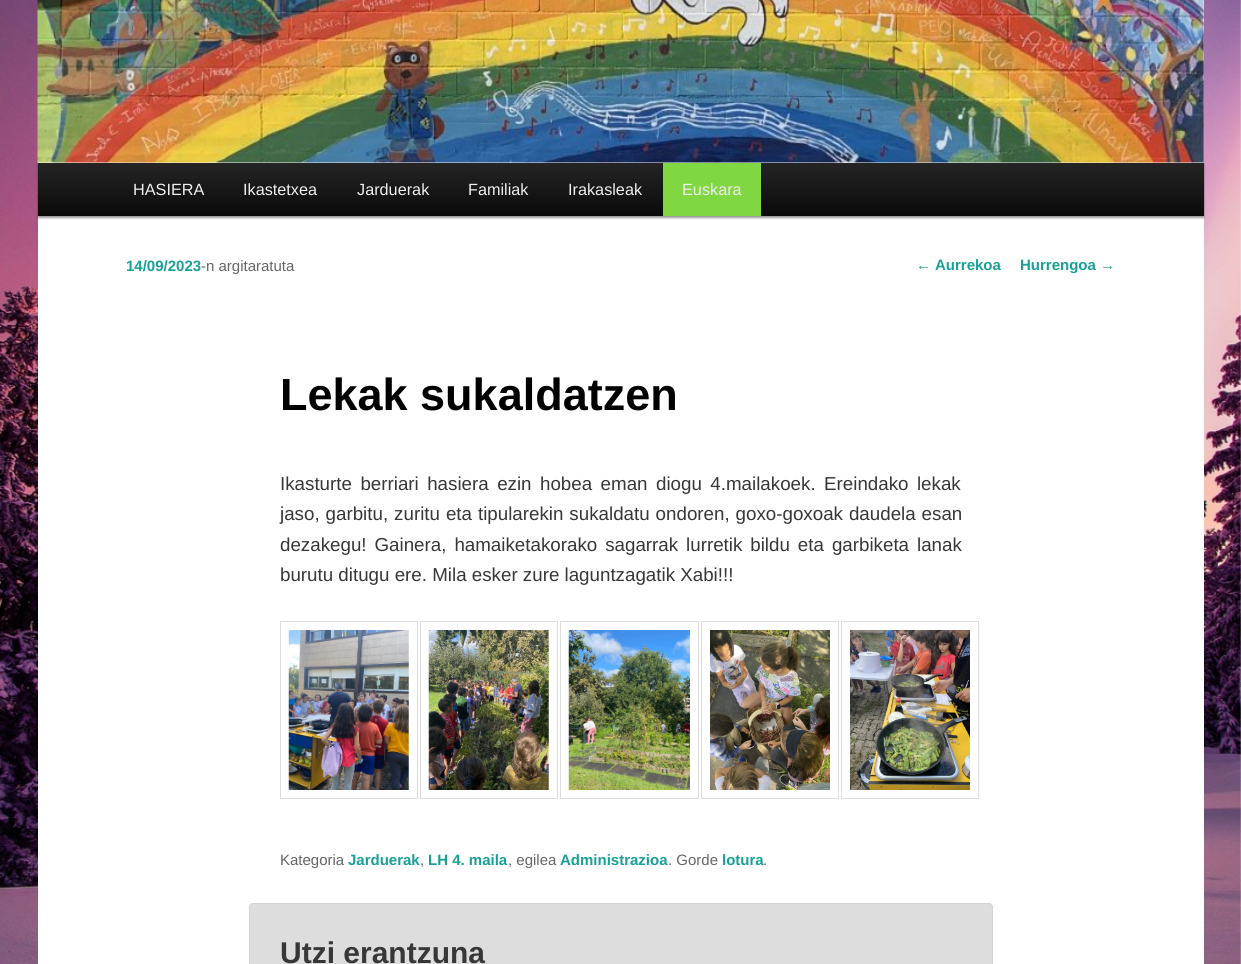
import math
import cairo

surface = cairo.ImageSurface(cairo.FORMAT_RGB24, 1241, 964)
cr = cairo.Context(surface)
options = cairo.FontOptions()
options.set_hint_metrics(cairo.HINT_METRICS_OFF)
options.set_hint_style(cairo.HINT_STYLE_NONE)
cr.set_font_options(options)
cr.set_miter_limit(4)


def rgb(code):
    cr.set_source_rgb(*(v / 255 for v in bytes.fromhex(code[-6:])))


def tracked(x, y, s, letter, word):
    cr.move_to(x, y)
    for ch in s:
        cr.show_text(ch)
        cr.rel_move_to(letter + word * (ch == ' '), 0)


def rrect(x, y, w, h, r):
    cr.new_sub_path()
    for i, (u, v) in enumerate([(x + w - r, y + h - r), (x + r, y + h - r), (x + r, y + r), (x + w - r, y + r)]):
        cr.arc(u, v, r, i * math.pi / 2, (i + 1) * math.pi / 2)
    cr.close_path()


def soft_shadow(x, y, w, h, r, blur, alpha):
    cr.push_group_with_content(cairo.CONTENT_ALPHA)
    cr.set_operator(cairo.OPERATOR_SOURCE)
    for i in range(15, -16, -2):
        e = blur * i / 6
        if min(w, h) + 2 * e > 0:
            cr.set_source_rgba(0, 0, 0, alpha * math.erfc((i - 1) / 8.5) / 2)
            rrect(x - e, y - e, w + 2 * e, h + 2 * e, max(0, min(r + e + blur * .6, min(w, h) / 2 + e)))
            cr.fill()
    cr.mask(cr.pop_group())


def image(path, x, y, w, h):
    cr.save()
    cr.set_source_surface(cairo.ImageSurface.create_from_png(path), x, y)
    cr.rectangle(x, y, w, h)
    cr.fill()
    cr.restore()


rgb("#ffffff")
cr.paint()
image("img/1.png", 0, 0, 1241, 964)
rgb("#ffffff")
cr.rectangle(38, 0, 1166, 964)
cr.fill()
rgb("#000000")
soft_shadow(38, 164, 1166, 54, 0, 1, 0.4)
image("img/2.png", 37, 0, 1167, 163)
gradient = cairo.LinearGradient(621, 162, 621, 216)
gradient.add_color_stop_rgba(0, 0.145, 0.145, 0.145, 1)
gradient.add_color_stop_rgba(1, 0.039, 0.039, 0.039, 1)
cr.set_source(gradient)
cr.rectangle(38, 163, 1166, 53)
cr.fill()
rgb("#81d742")
cr.rectangle(663, 163, 98, 53)
cr.fill()
cr.rectangle(280.5, 621.5, 137, 177)
rgb("#dddddd")
cr.set_line_width(1)
cr.stroke()
image("img/3.png", 288, 630, 121, 160)
cr.rectangle(420.5, 621.5, 137, 177)
cr.stroke()
image("img/4.png", 428, 630, 121, 160)
cr.rectangle(560.5, 621.5, 138, 177)
cr.stroke()
image("img/5.png", 568, 630, 122, 160)
cr.rectangle(701.5, 621.5, 137, 177)
cr.stroke()
image("img/6.png", 710, 630, 120, 160)
cr.rectangle(841.5, 621.5, 137, 177)
cr.stroke()
image("img/7.png", 850, 630, 120, 160)
rrect(249.5, 903.5, 743, 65, 3.5)
cr.fill_preserve()
rgb("#d3d3d3")
cr.stroke()
cr.select_font_face("Liberation Sans")
cr.set_font_size(16.25)
rgb("#eeeeee")
for x, y, s in [
    (133, 195, "HASIERA"),
    (243, 195, "Ikastetxea"),
    (357, 195, "Jarduerak"),
    (468, 195, "Familiak"),
    (568, 195, "Irakasleak"),
    (682, 195, "Euskara"),
]:
    cr.move_to(x, y)
    cr.show_text(s)
cr.select_font_face("Liberation Sans", cairo.FONT_SLANT_NORMAL, cairo.FONT_WEIGHT_BOLD)
cr.set_font_size(15)
rgb("#18a096")
cr.move_to(126, 271)
cr.show_text("14/09/2023")
cr.select_font_face("Liberation Sans")
rgb("#666666")
cr.move_to(201, 271)
cr.show_text("-n argitaratuta")
cr.select_font_face("Liberation Sans", cairo.FONT_SLANT_NORMAL, cairo.FONT_WEIGHT_BOLD)
cr.set_font_size(45)
rgb("#000000")
cr.move_to(280, 410)
cr.show_text("Lekak sukaldatzen")
cr.select_font_face("Liberation Sans")
cr.set_font_size(18.75)
rgb("#373737")
tracked(280, 490, "Ikasturte berriari hasiera ezin hobea eman diogu 4.mailakoek. Ereindako lekak", 0, 3.25)
tracked(280, 520, "jaso, garbitu, zuritu eta tipularekin sukaldatu ondoren, goxo-goxoak daudela esan", 0, 0.75)
tracked(280, 551, "dezakegu! Gainera, hamaiketakorako sagarrak lurretik bildu eta garbiketa lanak", 0, 2.75)
cr.move_to(280, 581)
cr.show_text("burutu ditugu ere. Mila esker zure laguntzagatik Xabi!!!")
cr.set_font_size(15)
rgb("#666666")
cr.move_to(280, 865)
cr.show_text("Kategoria")
cr.select_font_face("Liberation Sans", cairo.FONT_SLANT_NORMAL, cairo.FONT_WEIGHT_BOLD)
rgb("#18a096")
cr.move_to(348, 865)
cr.show_text("Jarduerak")
cr.select_font_face("Liberation Sans")
rgb("#666666")
cr.move_to(420, 865)
cr.show_text(",")
cr.select_font_face("Liberation Sans", cairo.FONT_SLANT_NORMAL, cairo.FONT_WEIGHT_BOLD)
rgb("#18a096")
cr.move_to(428, 865)
cr.show_text("LH 4. maila")
cr.select_font_face("Liberation Sans")
rgb("#666666")
cr.move_to(508, 865)
cr.show_text(", egilea")
cr.select_font_face("Liberation Sans", cairo.FONT_SLANT_NORMAL, cairo.FONT_WEIGHT_BOLD)
rgb("#18a096")
cr.move_to(560, 865)
cr.show_text("Administrazioa")
cr.select_font_face("Liberation Sans")
rgb("#666666")
cr.move_to(668, 865)
cr.show_text(". Gorde")
cr.select_font_face("Liberation Sans", cairo.FONT_SLANT_NORMAL, cairo.FONT_WEIGHT_BOLD)
rgb("#18a096")
cr.move_to(722, 865)
cr.show_text("lotura")
cr.select_font_face("Liberation Sans")
rgb("#666666")
cr.move_to(763, 865)
cr.show_text(".")
rgb("#18a096")
cr.move_to(916, 270)
cr.show_text("←")
cr.select_font_face("Liberation Sans", cairo.FONT_SLANT_NORMAL, cairo.FONT_WEIGHT_BOLD)
cr.move_to(935, 270)
cr.show_text("Aurrekoa")
cr.move_to(1020, 270)
cr.show_text("Hurrengoa")
cr.select_font_face("Liberation Sans")
cr.move_to(1100, 270)
cr.show_text("→")
cr.select_font_face("Liberation Sans", cairo.FONT_SLANT_NORMAL, cairo.FONT_WEIGHT_BOLD)
cr.set_font_size(30)
rgb("#373737")
cr.move_to(280, 963)
cr.show_text("Utzi erantzuna")
surface.write_to_png("page.png")
